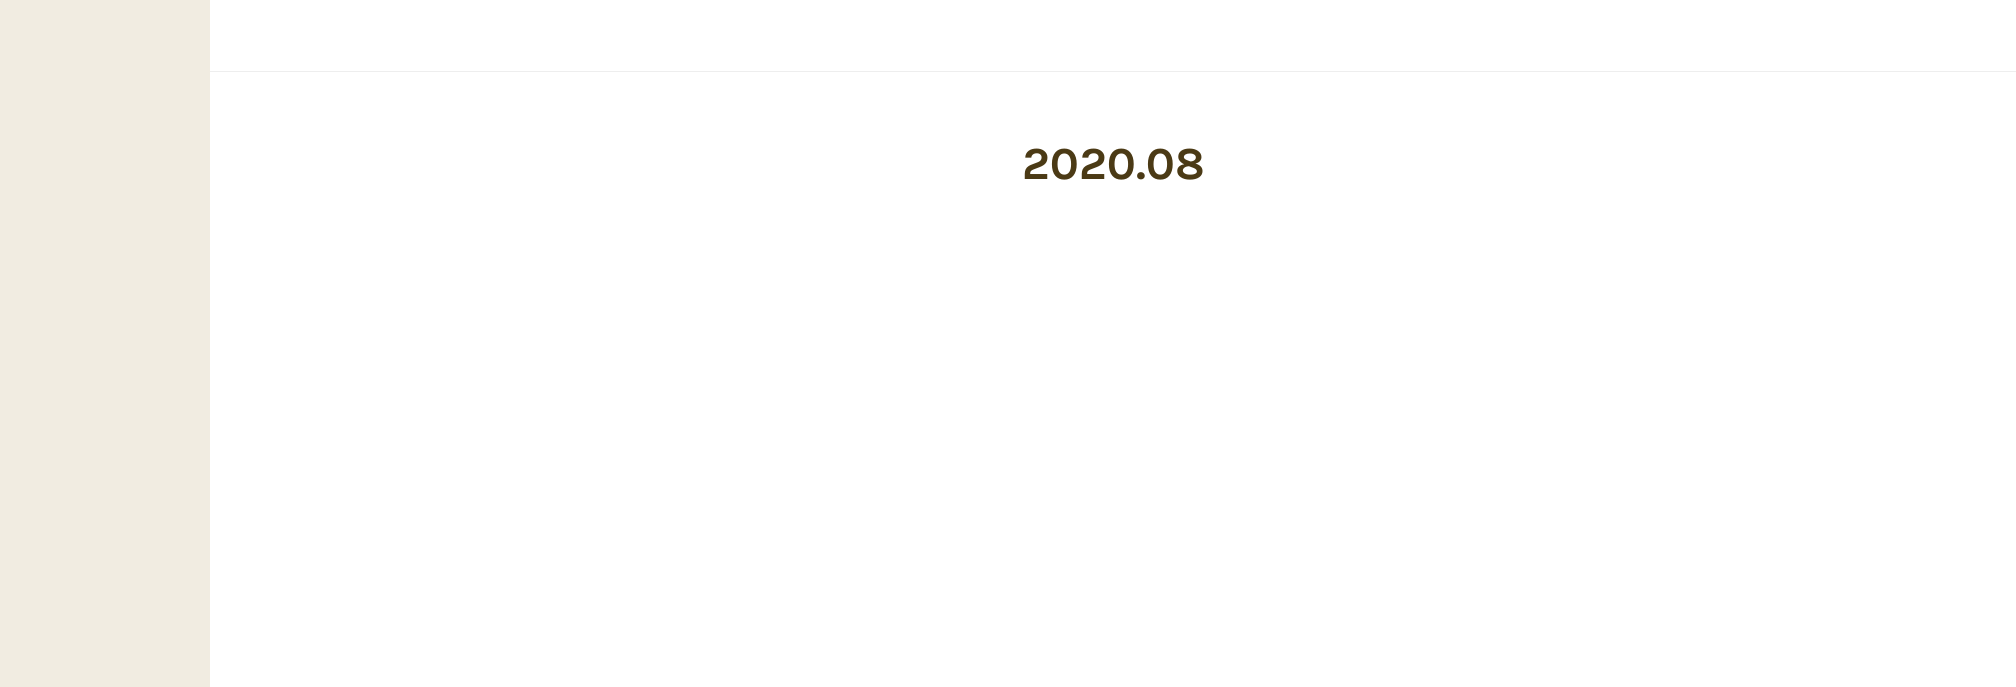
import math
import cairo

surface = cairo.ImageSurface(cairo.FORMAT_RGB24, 2016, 687)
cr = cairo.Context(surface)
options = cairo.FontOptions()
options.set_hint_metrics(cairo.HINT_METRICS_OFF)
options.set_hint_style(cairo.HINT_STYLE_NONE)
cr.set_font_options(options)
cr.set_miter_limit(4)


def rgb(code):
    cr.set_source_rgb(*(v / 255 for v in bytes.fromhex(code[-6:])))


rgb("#ffffff")
cr.paint()
rgb("#f1ece1")
cr.rectangle(0, 0, 210, 687)
cr.fill()
rgb("#eeeeee")
cr.rectangle(210, 71, 1806, 1)
cr.fill()
cr.select_font_face("Karla", cairo.FONT_SLANT_NORMAL, cairo.FONT_WEIGHT_BOLD)
cr.set_font_size(46)
rgb("#4b3a15")
cr.move_to(1022, 179)
cr.show_text("2020.08")
surface.write_to_png("page.png")
